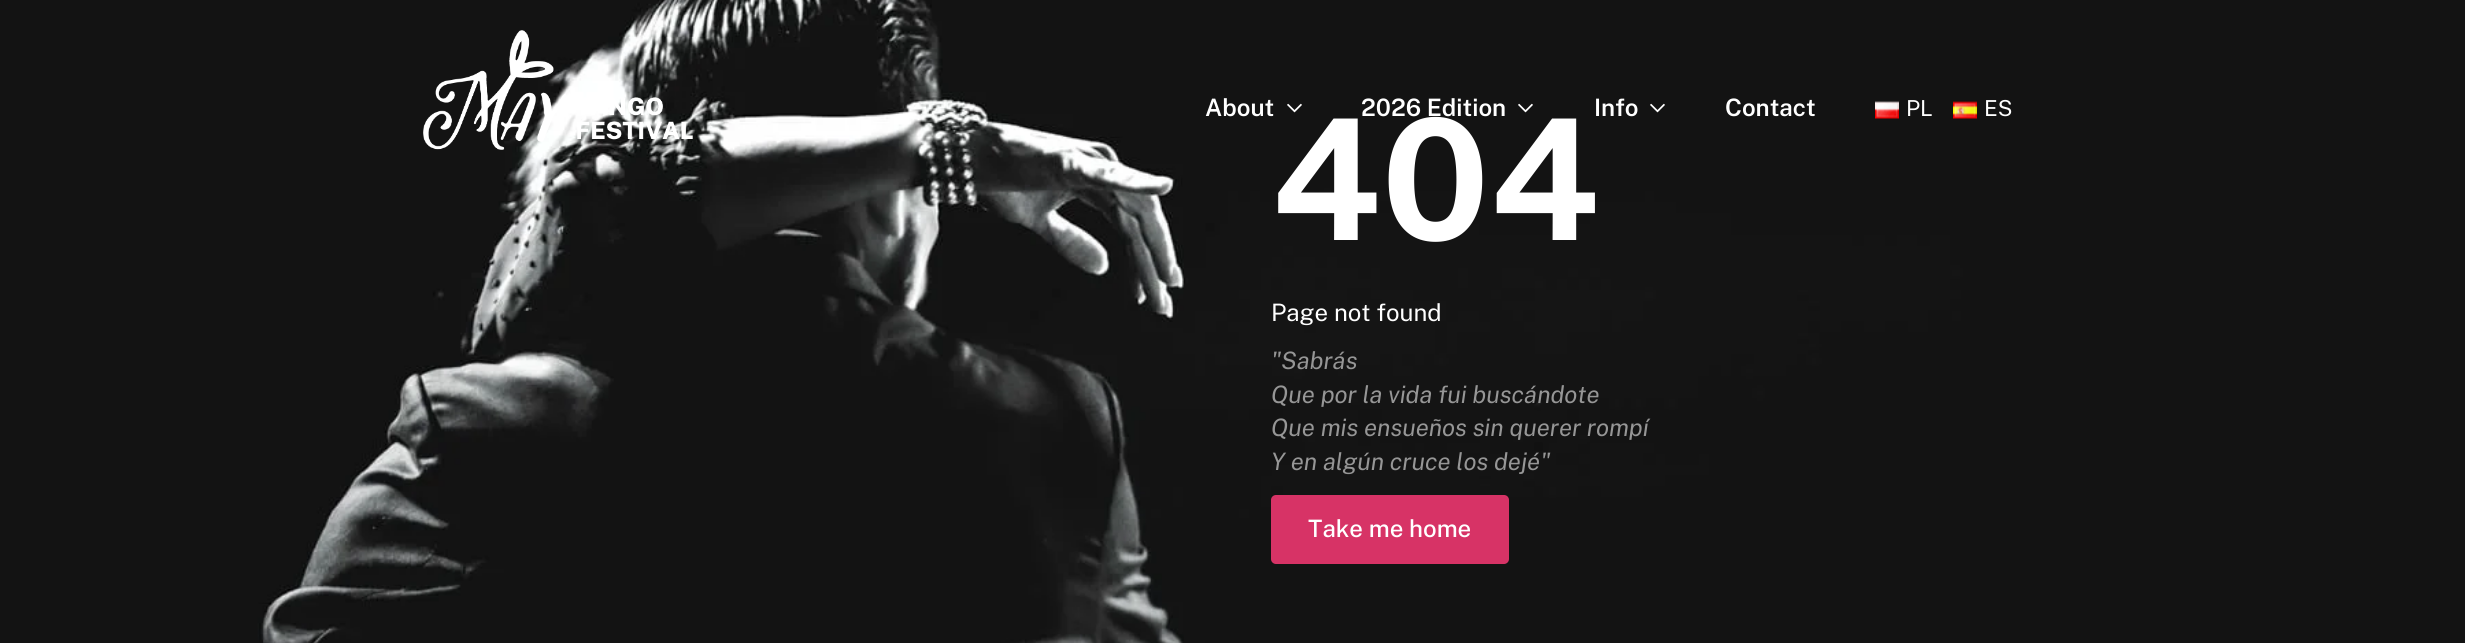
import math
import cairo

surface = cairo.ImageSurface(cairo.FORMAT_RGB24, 2465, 643)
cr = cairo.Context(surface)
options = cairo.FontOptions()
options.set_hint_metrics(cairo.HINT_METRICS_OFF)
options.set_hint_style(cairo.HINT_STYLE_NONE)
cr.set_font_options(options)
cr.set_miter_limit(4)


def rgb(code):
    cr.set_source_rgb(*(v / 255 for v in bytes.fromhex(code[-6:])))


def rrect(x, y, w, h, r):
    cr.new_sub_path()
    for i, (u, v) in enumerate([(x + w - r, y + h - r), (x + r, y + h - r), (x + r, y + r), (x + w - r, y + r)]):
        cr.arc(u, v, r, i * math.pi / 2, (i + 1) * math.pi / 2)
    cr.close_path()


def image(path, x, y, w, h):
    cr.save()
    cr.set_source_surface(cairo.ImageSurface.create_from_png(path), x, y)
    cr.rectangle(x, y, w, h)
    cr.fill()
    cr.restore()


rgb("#ffffff")
cr.paint()
image("img/5.png", 0, 0, 2465, 643)
image("img/1.png", 423, 30, 270, 120)
image("img/2.png", 1287, 103, 15, 10)
image("img/2.png", 1518, 103, 15, 10)
image("img/2.png", 1650, 103, 15, 10)
image("img/3.png", 1875, 101, 24, 18)
image("img/4.png", 1953, 101, 24, 18)
rgb("#d73366")
rrect(1271, 495, 238, 69, 5)
cr.fill()
cr.select_font_face("Public Sans SemiBold")
cr.set_font_size(24)
rgb("#ffffff")
for x, y, s in [
    (1205, 116, "About"),
    (1361, 116, "2026 Edition"),
    (1594, 116, "Info"),
    (1725, 116, "Contact"),
]:
    cr.move_to(x, y)
    cr.show_text(s)
cr.select_font_face("Public Sans")
cr.set_font_size(22)
cr.move_to(1906, 116)
cr.show_text("PL")
cr.move_to(1984, 116)
cr.show_text("ES")
cr.select_font_face("Public Sans", cairo.FONT_SLANT_NORMAL, cairo.FONT_WEIGHT_BOLD)
cr.set_font_size(168)
cr.move_to(1271, 240)
cr.show_text("404")
cr.select_font_face("Public Sans")
cr.set_font_size(24)
cr.move_to(1271, 321)
cr.show_text("Page not found")
cr.select_font_face("Public Sans", cairo.FONT_SLANT_ITALIC)
rgb("#969696")
for x, y, s in [
    (1271, 369, "\"Sabrás"),
    (1271, 403, "Que por la vida fui buscándote"),
    (1271, 436, "Que mis ensueños sin querer rompí"),
    (1271, 470, "Y en algún cruce los dejé\""),
]:
    cr.move_to(x, y)
    cr.show_text(s)
cr.select_font_face("Public Sans Medium")
rgb("#ffffff")
cr.move_to(1308, 537)
cr.show_text("Take me home")
surface.write_to_png("page.png")
